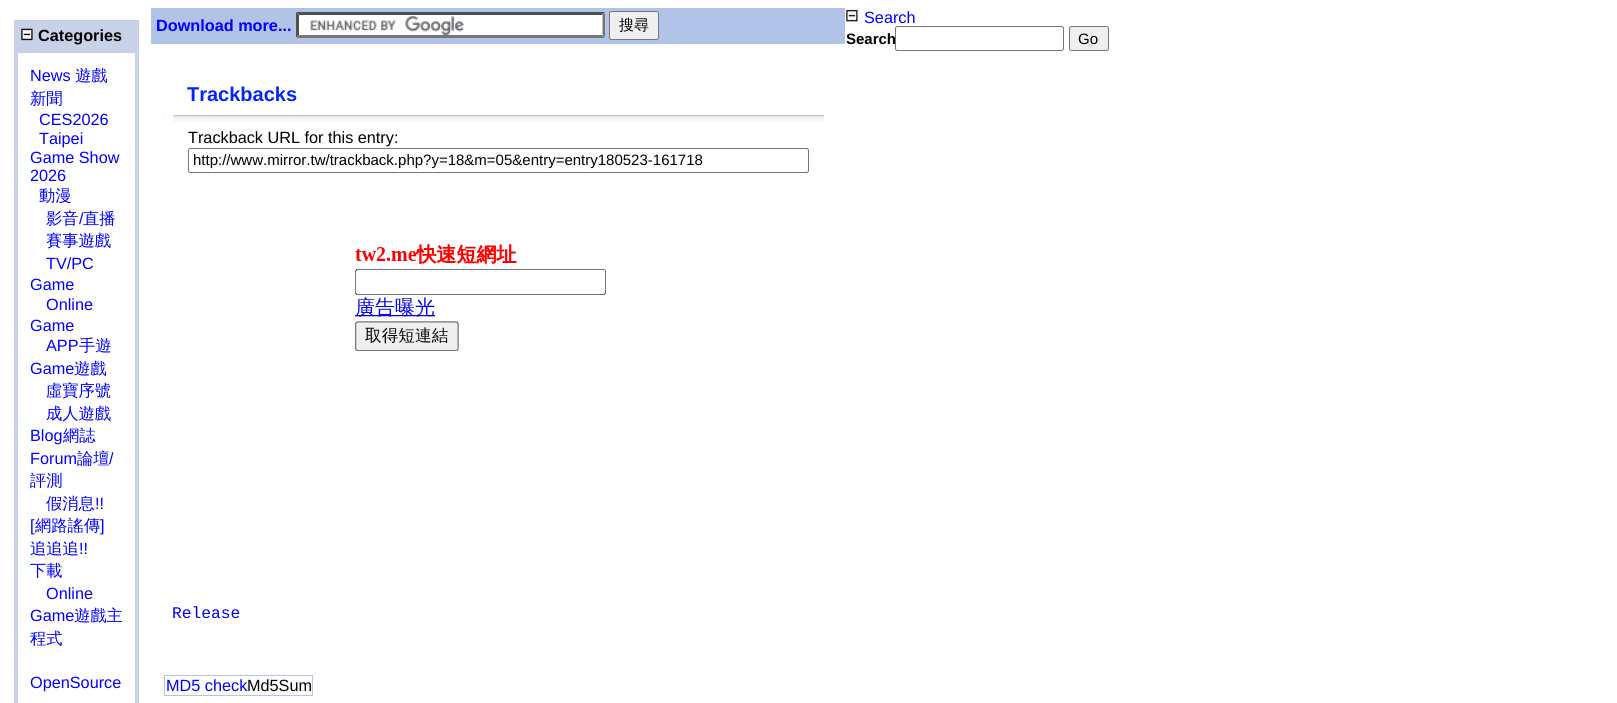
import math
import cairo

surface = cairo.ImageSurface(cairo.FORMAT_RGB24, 1617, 703)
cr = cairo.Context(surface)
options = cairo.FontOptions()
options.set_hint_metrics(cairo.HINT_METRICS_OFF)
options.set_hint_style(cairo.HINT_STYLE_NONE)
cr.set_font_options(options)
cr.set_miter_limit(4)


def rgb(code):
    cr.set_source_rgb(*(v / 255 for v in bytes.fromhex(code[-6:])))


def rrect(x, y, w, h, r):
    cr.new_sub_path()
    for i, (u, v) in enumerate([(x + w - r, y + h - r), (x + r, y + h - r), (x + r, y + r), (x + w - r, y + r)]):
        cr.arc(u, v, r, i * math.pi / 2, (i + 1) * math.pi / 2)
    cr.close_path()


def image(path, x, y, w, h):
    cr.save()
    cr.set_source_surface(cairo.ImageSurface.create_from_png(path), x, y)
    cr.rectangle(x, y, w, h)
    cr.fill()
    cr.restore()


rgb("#ffffff")
cr.paint()
rgb("#c7d1e7")
cr.rectangle(14, 20, 125, 29)
cr.fill()
image("img/1.png", 21, 28, 12, 13)
cr.rectangle(16, 51, 121, 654)
cr.set_line_width(4)
cr.stroke()
rgb("#b1c3e7")
cr.rectangle(151, 8, 694, 36)
cr.fill()
rgb("#ffffff")
cr.rectangle(296, 13, 309, 25)
cr.fill()
image("img/2.png", 310, 16, 154, 19)
rgb("#4f4f4f")
cr.new_path()
cr.move_to(296, 12)
cr.line_to(605, 12)
cr.line_to(602, 15)
cr.line_to(299, 15)
cr.close_path()
cr.fill()
rgb("#767676")
cr.new_path()
cr.move_to(605, 12.5)
cr.line_to(605, 37.5)
cr.line_to(602.5, 35)
cr.line_to(602.5, 15)
cr.close_path()
cr.fill()
cr.new_path()
cr.move_to(605, 38)
cr.line_to(296, 38)
cr.line_to(299, 35)
cr.line_to(602, 35)
cr.close_path()
cr.fill()
rgb("#4f4f4f")
cr.new_path()
cr.move_to(296, 37.5)
cr.line_to(296, 12.5)
cr.line_to(299, 15)
cr.line_to(299, 35)
cr.close_path()
cr.fill()
rgb("#efefef")
rrect(609.5, 11.5, 49, 28, 2)
cr.fill_preserve()
rgb("#767676")
cr.set_line_width(1)
cr.stroke()
image("img/3.png", 163, 115, 661, 7)
rgb("#ffffff")
cr.rectangle(164, 115, 9, 7)
cr.fill()
rrect(188.5, 148.5, 620, 24, 2)
rgb("#767676")
cr.stroke()
image("img/4.png", 355, 244, 251, 107)
cr.rectangle(164.5, 675.5, 148, 20)
rgb("#b1c3e7")
cr.stroke()
image("img/5.png", 846, 9, 12, 13)
rrect(895.5, 26.5, 168, 24, 2)
rgb("#767676")
cr.stroke()
rgb("#efefef")
rrect(1069.5, 26.5, 39, 24, 2)
cr.fill_preserve()
rgb("#767676")
cr.stroke()
cr.select_font_face("Liberation Sans", cairo.FONT_SLANT_NORMAL, cairo.FONT_WEIGHT_BOLD)
cr.set_font_size(16.25)
rgb("#000000")
cr.move_to(38, 41)
cr.show_text("Categories")
cr.select_font_face("Liberation Sans")
rgb("#0000ff")
cr.move_to(30, 81)
cr.show_text("News")
cr.select_font_face("WenQuanYi Zen Hei Medium")
cr.move_to(75, 81)
cr.show_text("遊戲")
cr.move_to(30, 104)
cr.show_text("新聞")
cr.select_font_face("Liberation Sans")
for x, y, s in [
    (39, 125, "CES2026"),
    (39, 144, "Taipei"),
    (30, 163, "Game Show"),
    (30, 181, "2026"),
]:
    cr.move_to(x, y)
    cr.show_text(s)
cr.select_font_face("WenQuanYi Zen Hei Medium")
cr.move_to(39, 201)
cr.show_text("動漫")
cr.move_to(46, 224)
cr.show_text("影音")
cr.select_font_face("Liberation Sans")
cr.move_to(79, 224)
cr.show_text("/")
cr.select_font_face("WenQuanYi Zen Hei Medium")
cr.move_to(83, 224)
cr.show_text("直播")
cr.move_to(46, 246)
cr.show_text("賽事遊戲")
cr.select_font_face("Liberation Sans")
for x, y, s in [
    (46, 269, "TV/PC"),
    (30, 290, "Game"),
    (46, 310, "Online"),
    (30, 331, "Game"),
    (46, 351, "APP"),
]:
    cr.move_to(x, y)
    cr.show_text(s)
cr.select_font_face("WenQuanYi Zen Hei Medium")
cr.move_to(79, 351)
cr.show_text("手遊")
cr.select_font_face("Liberation Sans")
cr.move_to(30, 374)
cr.show_text("Game")
cr.select_font_face("WenQuanYi Zen Hei Medium")
for x, y, s in [
    (74, 374, "遊戲"),
    (46, 396, "虛寶序號"),
    (46, 419, "成人遊戲"),
]:
    cr.move_to(x, y)
    cr.show_text(s)
cr.select_font_face("Liberation Sans")
cr.move_to(30, 441)
cr.show_text("Blog")
cr.select_font_face("WenQuanYi Zen Hei Medium")
cr.move_to(63, 441)
cr.show_text("網誌")
cr.select_font_face("Liberation Sans")
cr.move_to(30, 464)
cr.show_text("Forum")
cr.select_font_face("WenQuanYi Zen Hei Medium")
cr.move_to(77, 464)
cr.show_text("論壇")
cr.select_font_face("Liberation Sans")
cr.move_to(109, 464)
cr.show_text("/")
cr.select_font_face("WenQuanYi Zen Hei Medium")
cr.move_to(30, 486)
cr.show_text("評測")
cr.move_to(46, 509)
cr.show_text("假消息")
cr.select_font_face("Liberation Sans")
cr.move_to(95, 509)
cr.show_text("!!")
cr.move_to(30, 531)
cr.show_text("[")
cr.select_font_face("WenQuanYi Zen Hei Medium")
cr.move_to(35, 531)
cr.show_text("網路謠傳")
cr.select_font_face("Liberation Sans")
cr.move_to(100, 531)
cr.show_text("]")
cr.select_font_face("WenQuanYi Zen Hei Medium")
cr.move_to(30, 554)
cr.show_text("追追追")
cr.select_font_face("Liberation Sans")
cr.move_to(79, 554)
cr.show_text("!!")
cr.select_font_face("WenQuanYi Zen Hei Medium")
cr.move_to(30, 576)
cr.show_text("下載")
cr.select_font_face("Liberation Sans")
cr.move_to(46, 599)
cr.show_text("Online")
cr.move_to(30, 621)
cr.show_text("Game")
cr.select_font_face("WenQuanYi Zen Hei Medium")
cr.move_to(74, 621)
cr.show_text("遊戲主")
cr.move_to(30, 644)
cr.show_text("程式")
cr.select_font_face("Liberation Sans")
cr.move_to(30, 688)
cr.show_text("OpenSource")
cr.select_font_face("Liberation Sans", cairo.FONT_SLANT_NORMAL, cairo.FONT_WEIGHT_BOLD)
cr.move_to(156, 31)
cr.show_text("Download more...")
cr.select_font_face("WenQuanYi Zen Hei Medium")
cr.set_font_size(15)
rgb("#000000")
cr.move_to(619, 30)
cr.show_text("搜尋")
cr.select_font_face("Liberation Sans", cairo.FONT_SLANT_NORMAL, cairo.FONT_WEIGHT_BOLD)
cr.set_font_size(20)
rgb("#0525f8")
cr.move_to(187, 101)
cr.show_text("Trackbacks")
cr.select_font_face("Liberation Sans")
cr.set_font_size(16.25)
rgb("#000000")
cr.move_to(188, 143)
cr.show_text("Trackback URL for this entry:")
cr.set_font_size(15)
cr.move_to(193, 165)
cr.show_text("http://www.mirror.tw/trackback.php?y=18&m=05&entry=entry180523-161718")
cr.select_font_face("Liberation Mono")
cr.set_font_size(16.25)
rgb("#0000ff")
cr.move_to(172, 618)
cr.show_text("Release")
cr.select_font_face("Liberation Sans")
cr.move_to(166, 691)
cr.show_text("MD5 check")
rgb("#000000")
cr.move_to(247, 691)
cr.show_text("Md5Sum")
rgb("#0000ff")
cr.move_to(864, 23)
cr.show_text("Search")
cr.select_font_face("Liberation Sans", cairo.FONT_SLANT_NORMAL, cairo.FONT_WEIGHT_BOLD)
cr.set_font_size(15)
rgb("#000000")
cr.move_to(846, 44)
cr.show_text("Search")
cr.select_font_face("Liberation Sans")
cr.move_to(1078, 44)
cr.show_text("Go")
surface.write_to_png("page.png")
